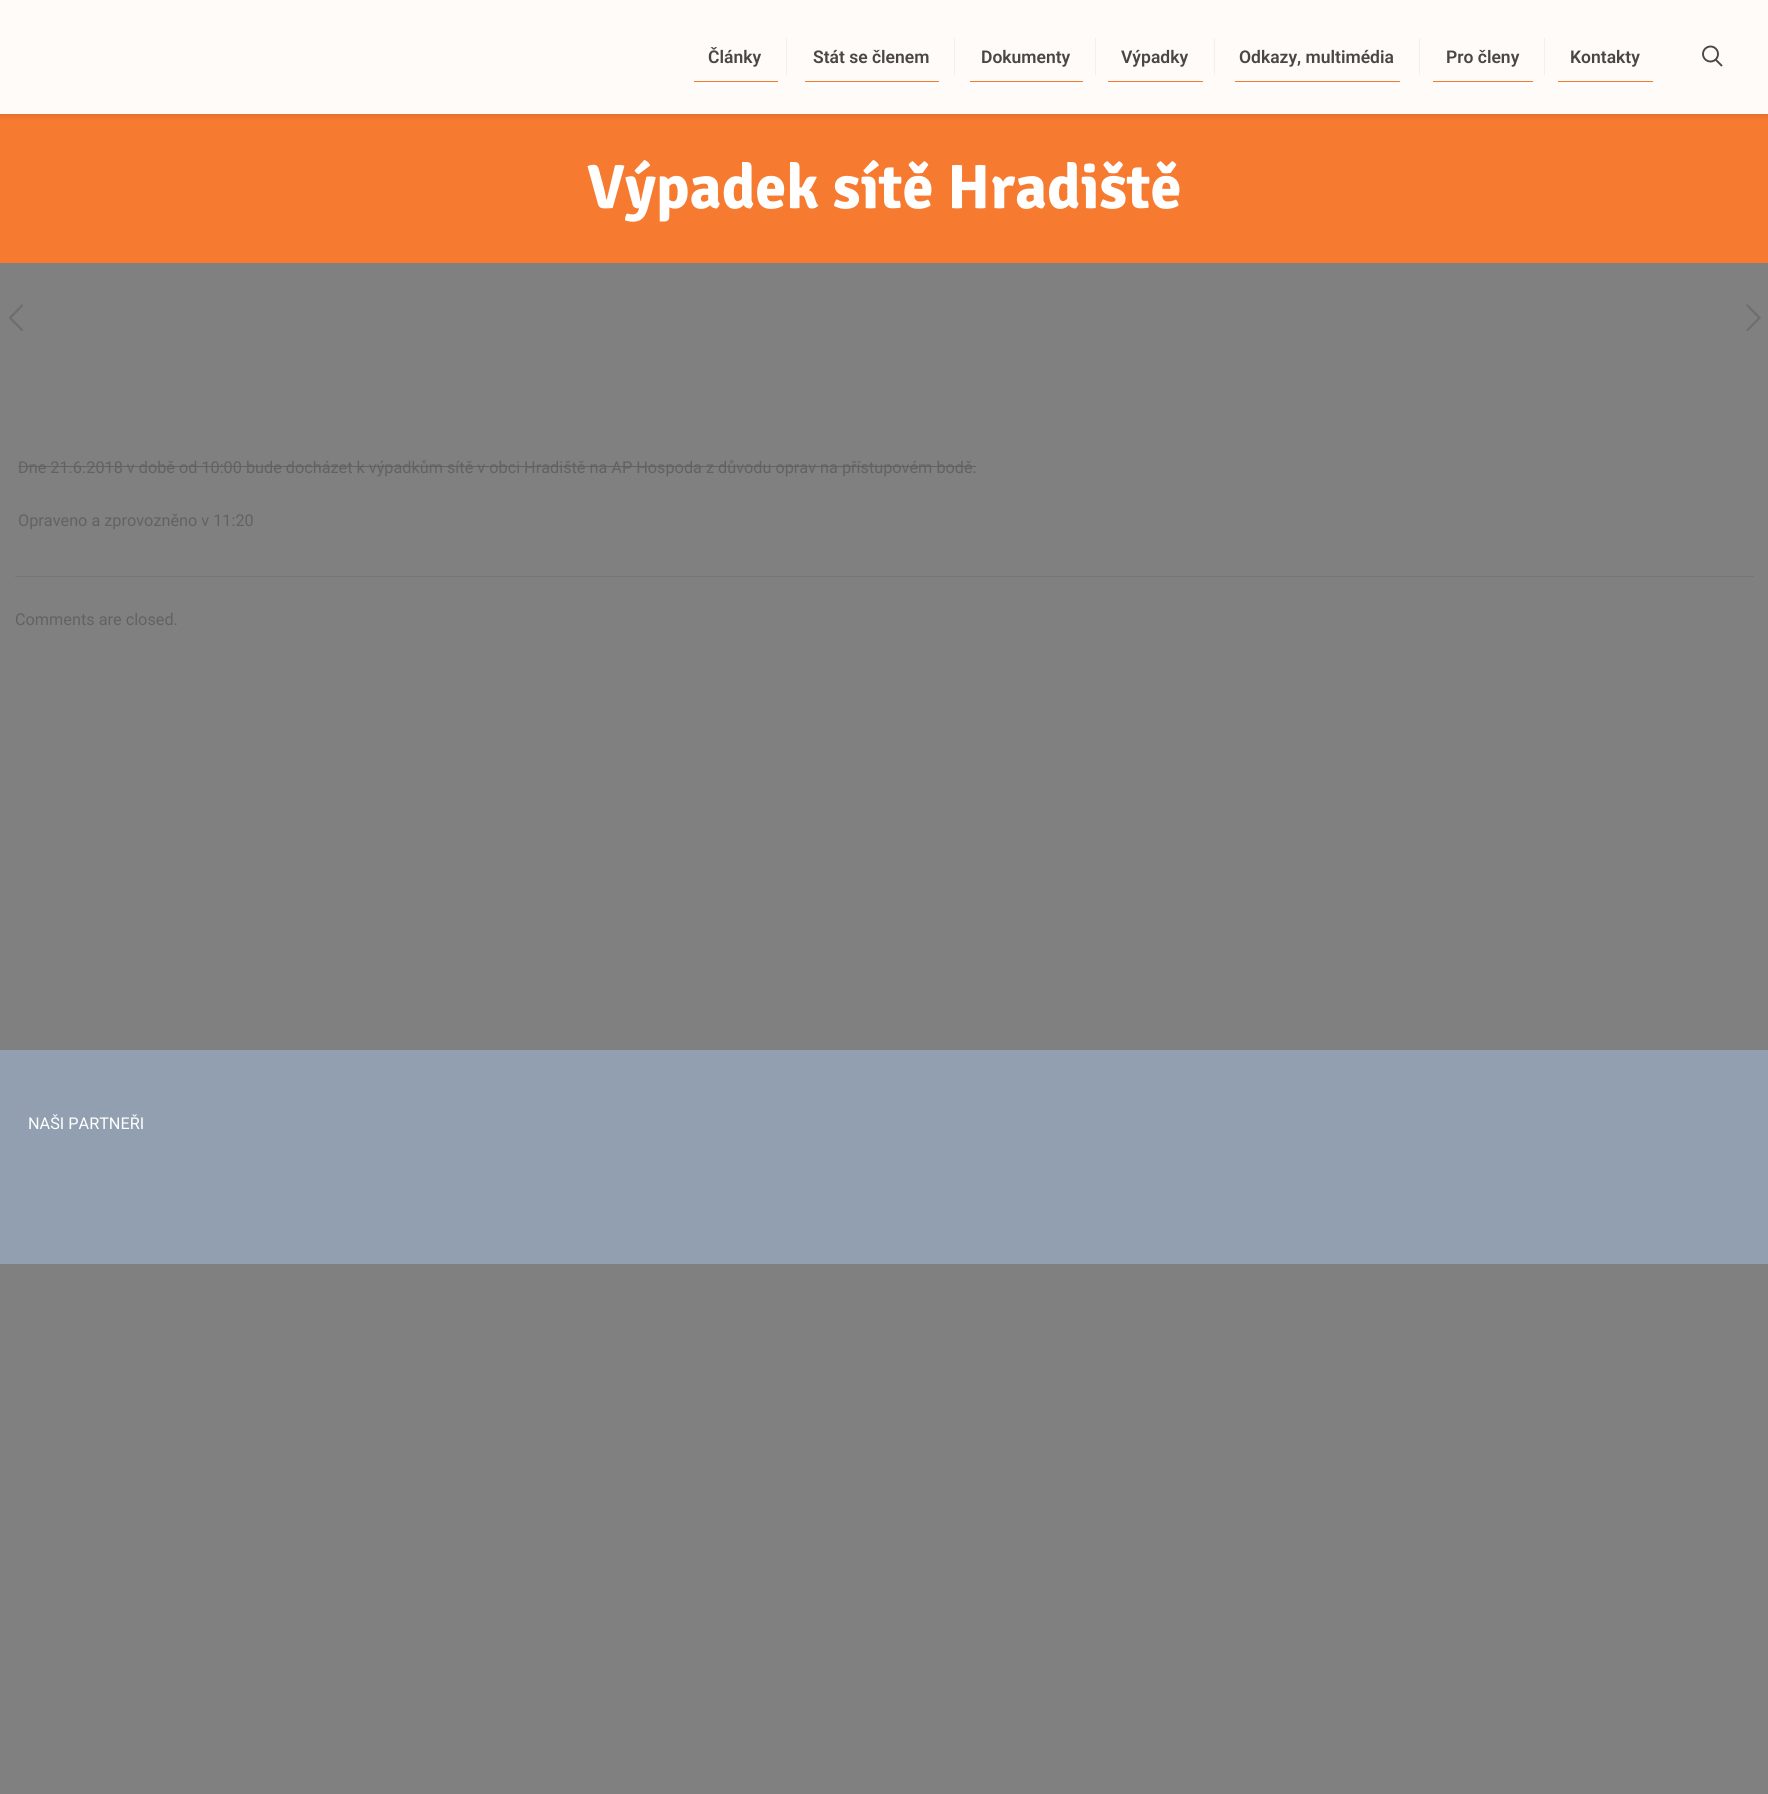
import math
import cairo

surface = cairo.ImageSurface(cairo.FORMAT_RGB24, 1768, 1794)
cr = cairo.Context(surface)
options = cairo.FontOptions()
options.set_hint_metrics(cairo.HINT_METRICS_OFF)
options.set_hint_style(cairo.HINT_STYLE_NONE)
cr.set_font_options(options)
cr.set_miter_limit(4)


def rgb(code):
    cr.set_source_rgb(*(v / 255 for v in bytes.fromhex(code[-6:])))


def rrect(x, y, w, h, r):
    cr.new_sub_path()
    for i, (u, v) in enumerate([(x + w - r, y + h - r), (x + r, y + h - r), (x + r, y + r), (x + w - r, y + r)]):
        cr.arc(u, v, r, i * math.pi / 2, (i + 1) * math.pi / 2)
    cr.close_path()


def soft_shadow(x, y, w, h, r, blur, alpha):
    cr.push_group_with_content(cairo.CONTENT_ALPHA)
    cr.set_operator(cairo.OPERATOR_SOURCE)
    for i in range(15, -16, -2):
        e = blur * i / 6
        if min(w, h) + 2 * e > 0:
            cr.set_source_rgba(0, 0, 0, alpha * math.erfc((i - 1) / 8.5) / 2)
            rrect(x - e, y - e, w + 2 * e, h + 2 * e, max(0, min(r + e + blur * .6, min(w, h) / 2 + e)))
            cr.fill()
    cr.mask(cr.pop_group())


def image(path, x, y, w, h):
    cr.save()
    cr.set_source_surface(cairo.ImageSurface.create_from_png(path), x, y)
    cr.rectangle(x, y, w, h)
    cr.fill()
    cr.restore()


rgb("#808080")
cr.paint()
rgb("#f77a31")
cr.rectangle(0, 114, 1768, 149)
cr.fill()
rgb("#070401")
soft_shadow(0, 3, 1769, 113, 0, 3, 0.1)
for x, y, w, h, color in [
    (0, 0, 1768, 114, "#fffbf9"),
    (786, 38, 1, 37, "#f3efed"),
    (694, 81, 84, 1, "#f77a31"),
    (954, 38, 1, 37, "#f3efed"),
    (805, 81, 134, 1, "#f77a31"),
    (1095, 38, 1, 37, "#f3efed"),
    (970, 81, 113, 1, "#f77a31"),
    (1214, 38, 1, 37, "#f3efed"),
    (1108, 81, 95, 1, "#f77a31"),
    (1419, 38, 1, 37, "#f3efed"),
    (1235, 81, 165, 1, "#f77a31"),
    (1544, 38, 1, 37, "#f3efed"),
    (1433, 81, 100, 1, "#f77a31"),
    (1558, 81, 95, 1, "#f77a31"),
]:
    rgb(color)
    cr.rectangle(x, y, w, h)
    cr.fill()
cr.arc(1710.5, 54, 7.5, 0, 2 * math.pi)
rgb("#494643")
cr.set_line_width(1.9)
cr.stroke()
cr.new_path()
cr.move_to(1715.5, 59.5)
cr.line_to(1722, 66)
cr.stroke()
image("img/1.png", 9, 304, 14, 27)
image("img/2.png", 1746, 304, 15, 27)
for x, y, w, h, color in [
    (18, 466, 958, 1, "#626262"),
    (15, 576, 1739, 1, "#767676"),
    (0, 1050, 1768, 214, "#919fb1"),
]:
    rgb(color)
    cr.rectangle(x, y, w, h)
    cr.fill()
cr.select_font_face("Roboto SemiBold")
cr.set_font_size(17.5)
rgb("#494643")
for x, y, s in [
    (708, 63, "Články"),
    (813, 63, "Stát se členem"),
    (981, 63, "Dokumenty"),
    (1121, 63, "Výpadky"),
    (1239, 63, "Odkazy, multimédia"),
    (1446, 63, "Pro členy"),
    (1570, 63, "Kontakty"),
]:
    cr.move_to(x, y)
    cr.show_text(s)
cr.select_font_face("Signika", cairo.FONT_SLANT_NORMAL, cairo.FONT_WEIGHT_BOLD)
cr.set_font_size(62.5)
rgb("#ffffff")
cr.move_to(587, 208)
cr.show_text("Výpadek sítě Hradiště")
cr.select_font_face("Roboto")
cr.set_font_size(16.25)
rgb("#626262")
for x, y, s in [
    (18, 473, "Dne 21.6.2018 v době od 10:00 bude docházet k výpadkům sítě v obci Hradiště na AP Hospoda z důvodu oprav na přístupovém bodě."),
    (18, 526, "Opraveno a zprovozněno v 11:20"),
    (15, 625, "Comments are closed."),
]:
    cr.move_to(x, y)
    cr.show_text(s)
rgb("#ffffff")
cr.move_to(28, 1129)
cr.show_text("NAŠI PARTNEŘI")
surface.write_to_png("page.png")
